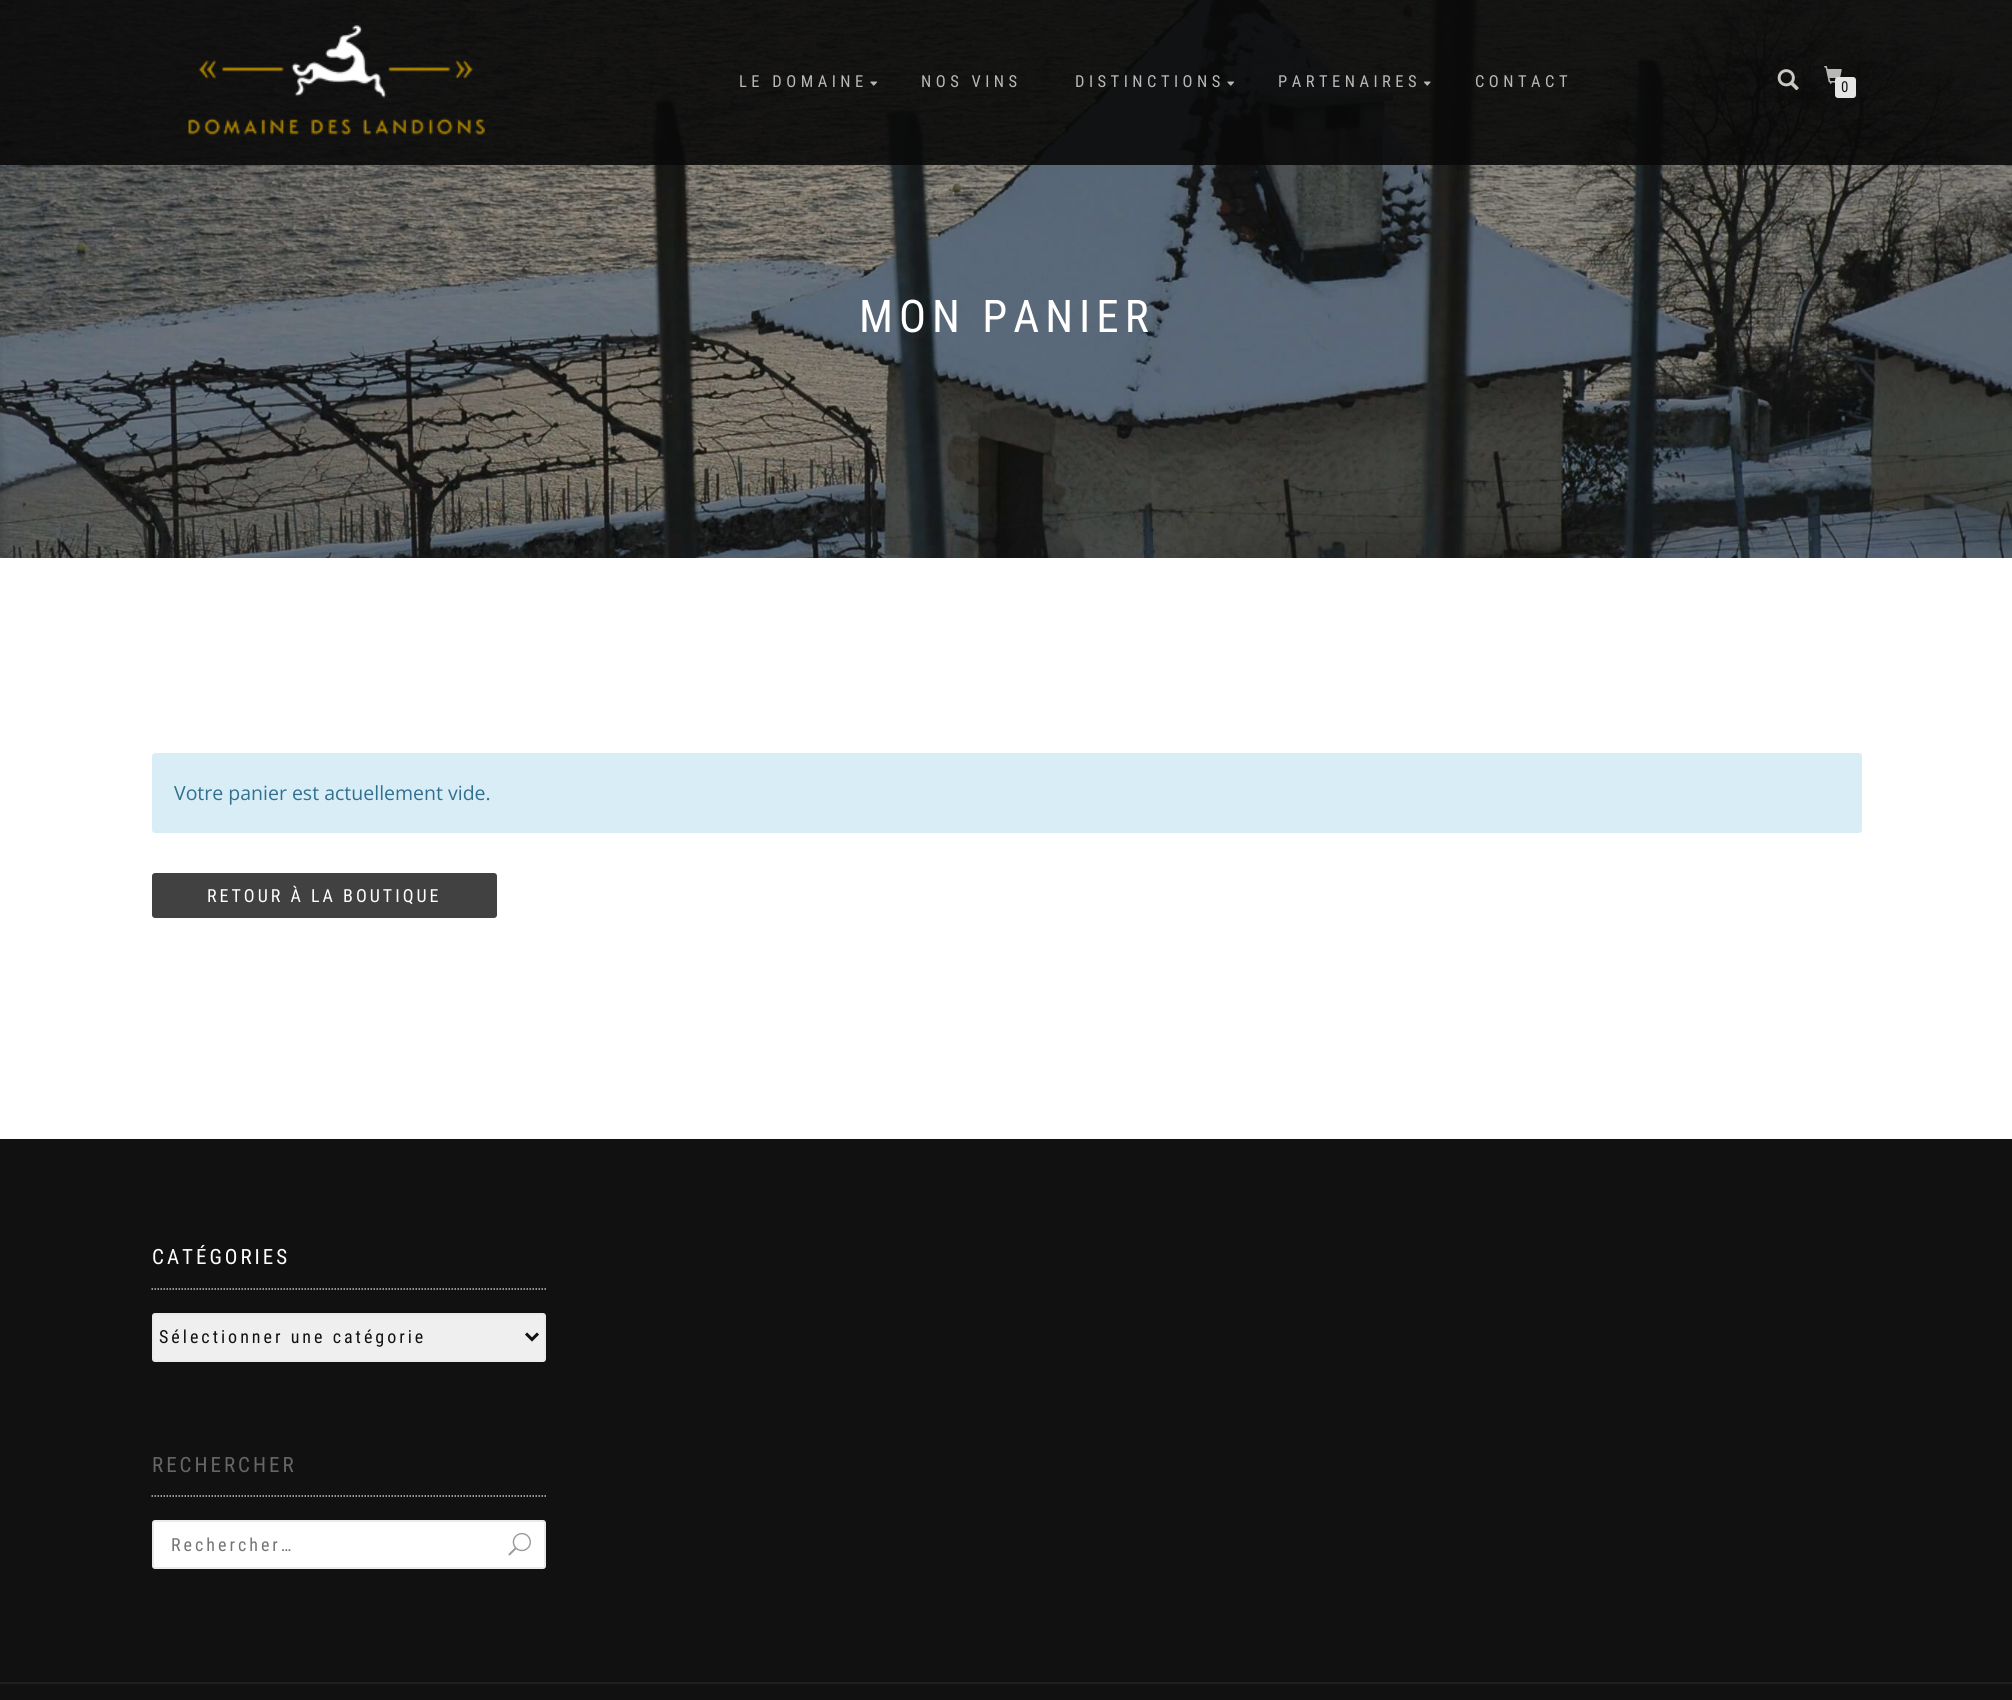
import math
import cairo

surface = cairo.ImageSurface(cairo.FORMAT_RGB24, 2012, 1700)
cr = cairo.Context(surface)
options = cairo.FontOptions()
options.set_hint_metrics(cairo.HINT_METRICS_OFF)
options.set_hint_style(cairo.HINT_STYLE_NONE)
cr.set_font_options(options)
cr.set_miter_limit(4)


def rgb(code):
    cr.set_source_rgb(*(v / 255 for v in bytes.fromhex(code[-6:])))


def tracked(x, y, s, letter, word):
    cr.move_to(x, y)
    for ch in s:
        cr.show_text(ch)
        cr.rel_move_to(letter + word * (ch == ' '), 0)


def rrect(x, y, w, h, r):
    cr.new_sub_path()
    for i, (u, v) in enumerate([(x + w - r, y + h - r), (x + r, y + h - r), (x + r, y + r), (x + w - r, y + r)]):
        cr.arc(u, v, r, i * math.pi / 2, (i + 1) * math.pi / 2)
    cr.close_path()


def image(path, x, y, w, h):
    cr.save()
    cr.set_source_surface(cairo.ImageSurface.create_from_png(path), x, y)
    cr.rectangle(x, y, w, h)
    cr.fill()
    cr.restore()


rgb("#ffffff")
cr.paint()
image("img/7.png", 0, 0, 2012, 558)
cr.set_source_rgba(0.039, 0.039, 0.039, 0.9)
cr.rectangle(0, 0, 2012, 165)
cr.fill()
image("img/1.png", 188, 25, 298, 111)
image("img/2.png", 870, 81, 7, 5)
image("img/3.png", 1227, 81, 7, 5)
image("img/4.png", 1423, 81, 8, 5)
image("img/5.png", 1777, 69, 22, 22)
image("img/6.png", 1824, 66, 18, 18)
rgb("#e5e5e5")
rrect(1835, 77, 21, 21, 3)
cr.fill()
rgb("#d9edf7")
rrect(152, 753, 1710, 80, 3)
cr.fill()
rgb("#414141")
rrect(152, 873, 345, 45, 3)
cr.fill()
rgb("#111111")
cr.rectangle(0, 1139, 2012, 543)
cr.fill()
cr.new_path()
cr.move_to(151.5, 1289)
cr.line_to(546, 1289)
rgb("#c2c2c2")
cr.set_line_width(1.5)
cr.set_dash([1.5, 1.5])
cr.stroke()
rgb("#efefef")
rrect(153, 1314, 392, 47, 2)
cr.fill_preserve()
rgb("#eaeaea")
cr.set_line_width(2)
cr.set_dash([])
cr.stroke()
cr.new_path()
cr.move_to(526, 1333.5)
cr.line_to(532, 1339.5)
cr.line_to(538, 1333.5)
rgb("#111111")
cr.set_line_width(3)
cr.stroke()
cr.new_path()
cr.move_to(151.5, 1496)
cr.line_to(546, 1496)
rgb("#c2c2c2")
cr.set_line_width(1.5)
cr.set_dash([1.5, 1.5])
cr.stroke()
rgb("#ffffff")
rrect(153, 1521, 392, 47, 2)
cr.fill_preserve()
rgb("#eaeaea")
cr.set_line_width(2)
cr.set_dash([])
cr.stroke()
image("img/8.png", 508, 1532, 23, 24)
rgb("#111111")
cr.rectangle(0, 1684, 2012, 16)
cr.fill()
rgb("#202020")
cr.rectangle(0, 1682, 2012, 2)
cr.fill()
cr.select_font_face("Roboto Condensed")
cr.set_font_size(16.5)
rgb("#b9b9b8")
for x, y, s in [
    (739, 87, "LE DOMAINE"),
    (921, 87, "NOS VINS"),
    (1075, 87, "DISTINCTIONS"),
    (1278, 87, "PARTENAIRES"),
    (1475, 87, "CONTACT"),
]:
    tracked(x, y, s, 4.5, 0)
cr.set_font_size(15)
rgb("#111111")
cr.move_to(1841, 92)
cr.show_text("0")
cr.set_font_size(45)
rgb("#ffffff")
tracked(859, 332, "MON PANIER", 6, 0)
cr.select_font_face("Open Sans")
cr.set_font_size(19.5)
rgb("#31708f")
cr.move_to(174, 800)
cr.show_text("Votre panier est actuellement vide.")
cr.select_font_face("Roboto Condensed")
cr.set_font_size(18)
rgb("#ffffff")
tracked(207, 902, "RETOUR À LA BOUTIQUE", 3, 0)
cr.set_font_size(21)
tracked(152, 1264, "CATÉGORIES", 3, 0)
cr.set_font_size(18)
rgb("#111111")
tracked(159, 1343, "Sélectionner une catégorie", 3, 0)
cr.set_font_size(21)
rgb("#666666")
tracked(152, 1472, "RECHERCHER", 3, 0)
cr.set_font_size(18)
rgb("#757575")
tracked(171, 1551, "Rechercher…", 3, 0)
surface.write_to_png("page.png")
